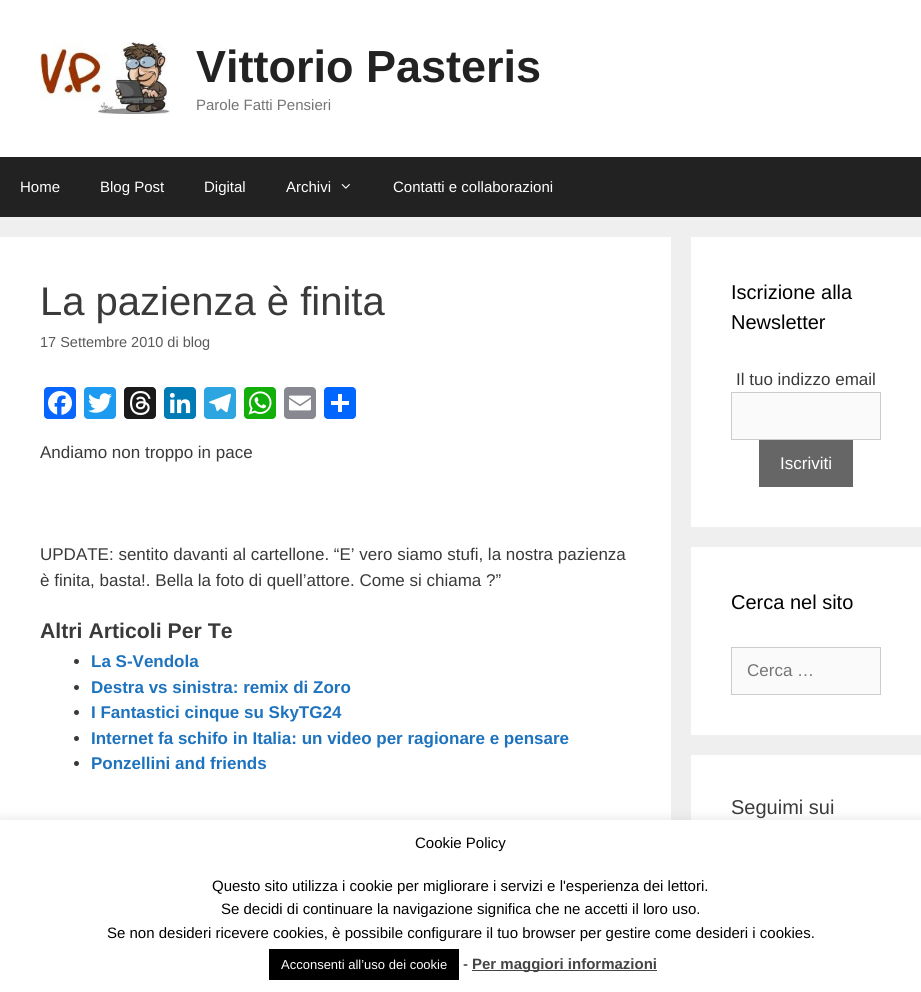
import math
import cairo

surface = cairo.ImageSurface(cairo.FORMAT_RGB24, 921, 992)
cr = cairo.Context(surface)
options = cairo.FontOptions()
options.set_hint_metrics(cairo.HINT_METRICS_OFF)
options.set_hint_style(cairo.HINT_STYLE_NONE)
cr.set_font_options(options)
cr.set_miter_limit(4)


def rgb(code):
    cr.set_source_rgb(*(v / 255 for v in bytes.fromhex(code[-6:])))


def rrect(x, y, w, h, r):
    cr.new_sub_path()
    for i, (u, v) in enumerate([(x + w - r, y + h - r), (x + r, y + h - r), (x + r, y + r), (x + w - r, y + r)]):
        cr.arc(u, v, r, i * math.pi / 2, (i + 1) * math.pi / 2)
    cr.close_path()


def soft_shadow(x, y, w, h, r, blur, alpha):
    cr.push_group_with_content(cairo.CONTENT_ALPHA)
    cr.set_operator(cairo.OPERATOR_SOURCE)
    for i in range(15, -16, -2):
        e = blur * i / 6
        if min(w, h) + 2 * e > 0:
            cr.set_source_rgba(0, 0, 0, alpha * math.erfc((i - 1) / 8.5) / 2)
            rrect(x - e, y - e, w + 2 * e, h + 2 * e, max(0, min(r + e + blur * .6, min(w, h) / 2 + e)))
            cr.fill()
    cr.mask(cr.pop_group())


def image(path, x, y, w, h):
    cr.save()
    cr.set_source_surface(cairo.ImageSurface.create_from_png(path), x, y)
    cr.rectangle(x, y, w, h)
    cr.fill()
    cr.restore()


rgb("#efefef")
cr.paint()
rgb("#ffffff")
cr.rectangle(0, 0, 921, 157)
cr.fill()
image("img/1.png", 40, 42, 130, 72)
rgb("#222222")
cr.rectangle(0, 157, 921, 60)
cr.fill()
image("img/2.png", 341, 184, 9, 5)
rgb("#ffffff")
cr.rectangle(0, 237, 671, 583)
cr.fill()
rgb("#0866ff")
rrect(44, 387, 32, 32, 4)
cr.fill()
image("img/3.png", 48, 391, 24, 24)
rgb("#1d9bf0")
rrect(84, 387, 32, 32, 4)
cr.fill()
image("img/4.png", 88, 393, 24, 20)
rgb("#1a1a1a")
rrect(124, 387, 32, 32, 4)
cr.fill()
image("img/5.png", 130, 391, 21, 24)
rgb("#007bb5")
rrect(164, 387, 32, 32, 4)
cr.fill()
image("img/6.png", 169, 392, 22, 22)
rgb("#2ca5e0")
rrect(204, 387, 32, 32, 4)
cr.fill()
image("img/7.png", 209, 393, 22, 20)
rgb("#12af0a")
rrect(244, 387, 32, 32, 4)
cr.fill()
image("img/8.png", 248, 391, 24, 24)
rgb("#888990")
rrect(284, 387, 32, 32, 4)
cr.fill()
image("img/9.png", 289, 395, 22, 16)
rgb("#0166ff")
rrect(324, 387, 32, 32, 4)
cr.fill()
rgb("#ffffff")
cr.rectangle(338, 394, 4, 18)
cr.fill()
cr.rectangle(331, 401, 18, 4)
cr.fill()
rgb("#3a3a3a")
cr.arc(76.5, 661.5, 2.5, 0, 2 * math.pi)
cr.fill()
cr.arc(76.5, 687.5, 2.5, 0, 2 * math.pi)
cr.fill()
cr.arc(76.5, 712.5, 2.5, 0, 2 * math.pi)
cr.fill()
cr.arc(76.5, 738.5, 2.5, 0, 2 * math.pi)
cr.fill()
cr.arc(76.5, 763.5, 2.5, 0, 2 * math.pi)
cr.fill()
rgb("#ffffff")
cr.rectangle(691, 237, 230, 290)
cr.fill()
rgb("#fafafa")
cr.rectangle(731.5, 392.5, 149, 47)
cr.fill_preserve()
rgb("#cccccc")
cr.set_line_width(1)
cr.stroke()
rgb("#666666")
cr.rectangle(759, 440, 94, 47)
cr.fill()
rgb("#ffffff")
cr.rectangle(691, 547, 230, 188)
cr.fill()
rgb("#fafafa")
cr.rectangle(731.5, 647.5, 149, 47)
cr.fill_preserve()
rgb("#cccccc")
cr.stroke()
rgb("#ffffff")
cr.rectangle(691, 755, 230, 65)
cr.fill()
rgb("#acabab")
soft_shadow(0, 819, 921, 172, 0, 5, 0.3)
for x, y, w, h, color in [
    (0, 820, 921, 172, "#ffffff"),
    (269, 949, 190, 31, "#000000"),
    (472, 970, 185, 1, "#444444"),
]:
    rgb(color)
    cr.rectangle(x, y, w, h)
    cr.fill()
cr.select_font_face("Liberation Sans", cairo.FONT_SLANT_NORMAL, cairo.FONT_WEIGHT_BOLD)
cr.set_font_size(45)
rgb("#222222")
cr.move_to(196, 82)
cr.show_text("Vittorio Pasteris")
cr.select_font_face("Liberation Sans")
cr.set_font_size(15)
rgb("#757575")
cr.move_to(196, 110)
cr.show_text("Parole Fatti Pensieri")
rgb("#ffffff")
for x, y, s in [
    (20, 192, "Home"),
    (100, 192, "Blog Post"),
    (204, 192, "Digital"),
    (286, 192, "Archivi"),
    (393, 192, "Contatti e collaborazioni"),
]:
    cr.move_to(x, y)
    cr.show_text(s)
cr.set_font_size(40)
rgb("#3a3a3a")
cr.move_to(40, 315)
cr.show_text("La pazienza è finita")
cr.set_font_size(14.5)
rgb("#595959")
cr.move_to(40, 347)
cr.show_text("17 Settembre 2010 di blog")
cr.set_font_size(17)
rgb("#3a3a3a")
for x, y, s in [
    (40, 458, "Andiamo non troppo in pace"),
    (40, 560, "UPDATE: sentito davanti al cartellone. “E’ vero siamo stufi, la nostra pazienza"),
    (40, 586, "è finita, basta!. Bella la foto di quell’attore. Come si chiama ?”"),
]:
    cr.move_to(x, y)
    cr.show_text(s)
cr.select_font_face("Liberation Sans", cairo.FONT_SLANT_NORMAL, cairo.FONT_WEIGHT_BOLD)
cr.set_font_size(21.25)
cr.move_to(40, 638)
cr.show_text("Altri Articoli Per Te")
cr.set_font_size(17)
rgb("#1e73be")
for x, y, s in [
    (91, 667, "La S-Vendola"),
    (91, 693, "Destra vs sinistra: remix di Zoro"),
    (91, 718, "I Fantastici cinque su SkyTG24"),
    (91, 744, "Internet fa schifo in Italia: un video per ragionare e pensare"),
    (91, 769, "Ponzellini and friends"),
]:
    cr.move_to(x, y)
    cr.show_text(s)
cr.select_font_face("Liberation Sans")
cr.set_font_size(20)
rgb("#000000")
cr.move_to(731, 299)
cr.show_text("Iscrizione alla")
cr.move_to(731, 329)
cr.show_text("Newsletter")
cr.set_font_size(17)
rgb("#3a3a3a")
cr.move_to(736, 385)
cr.show_text("Il tuo indizzo email")
rgb("#ffffff")
cr.move_to(780, 469)
cr.show_text("Iscriviti")
cr.set_font_size(20)
rgb("#000000")
cr.move_to(731, 609)
cr.show_text("Cerca nel sito")
cr.set_font_size(17)
rgb("#757575")
cr.move_to(747, 676)
cr.show_text("Cerca …")
cr.set_font_size(20)
rgb("#3a3a3a")
cr.move_to(731, 814)
cr.show_text("Seguimi sui")
cr.set_font_size(15)
rgb("#000000")
for x, y, s in [
    (415, 848, "Cookie Policy"),
    (212, 891, "Questo sito utilizza i cookie per migliorare i servizi e l'esperienza dei lettori."),
    (221, 914, "Se decidi di continuare la navigazione significa che ne accetti il loro uso."),
    (107, 938, "Se non desideri ricevere cookies, è possibile configurare il tuo browser per gestire come desideri i cookies."),
]:
    cr.move_to(x, y)
    cr.show_text(s)
cr.set_font_size(13)
rgb("#ffffff")
cr.move_to(281, 969)
cr.show_text("Acconsenti all’uso dei cookie")
cr.set_font_size(15)
rgb("#000000")
cr.move_to(463, 969)
cr.show_text("-")
cr.select_font_face("Liberation Sans", cairo.FONT_SLANT_NORMAL, cairo.FONT_WEIGHT_BOLD)
rgb("#444444")
cr.move_to(472, 969)
cr.show_text("Per maggiori informazioni")
surface.write_to_png("page.png")
